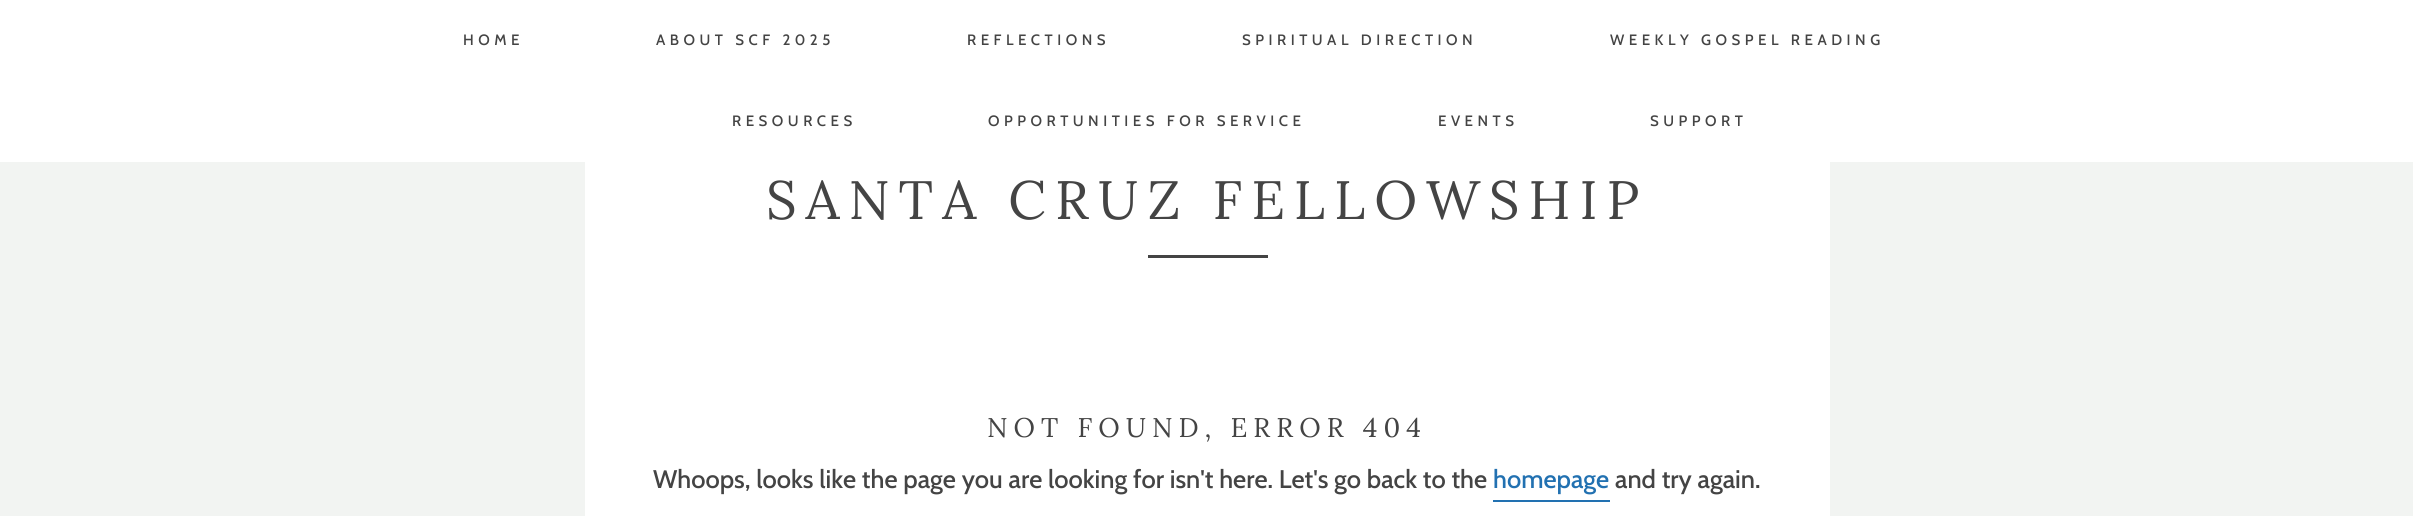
import math
import cairo

surface = cairo.ImageSurface(cairo.FORMAT_RGB24, 2413, 516)
cr = cairo.Context(surface)
options = cairo.FontOptions()
options.set_hint_metrics(cairo.HINT_METRICS_OFF)
options.set_hint_style(cairo.HINT_STYLE_NONE)
cr.set_font_options(options)
cr.set_miter_limit(4)


def rgb(code):
    cr.set_source_rgb(*(v / 255 for v in bytes.fromhex(code[-6:])))


def tracked(x, y, s, letter, word):
    cr.move_to(x, y)
    for ch in s:
        cr.show_text(ch)
        cr.rel_move_to(letter + word * (ch == ' '), 0)


rgb("#f2f4f2")
cr.paint()
for x, y, w, h, color in [
    (0, 0, 2413, 162, "#ffffff"),
    (585, 162, 1245, 354, "#ffffff"),
    (1148, 255, 120, 3, "#444444"),
    (1493, 500, 117, 2, "#2271b1"),
]:
    rgb(color)
    cr.rectangle(x, y, w, h)
    cr.fill()
cr.select_font_face("Cabin Medium")
cr.set_font_size(15)
rgb("#444444")
for x, y, s in [
    (463, 45, "HOME"),
    (656, 45, "ABOUT SCF 2025"),
    (967, 45, "REFLECTIONS"),
    (1242, 45, "SPIRITUAL DIRECTION"),
    (1610, 45, "WEEKLY GOSPEL READING"),
    (732, 126, "RESOURCES"),
    (988, 126, "OPPORTUNITIES FOR SERVICE"),
    (1438, 126, "EVENTS"),
    (1650, 126, "SUPPORT"),
]:
    tracked(x, y, s, 4.5, 0)
cr.select_font_face("Lora")
cr.set_font_size(54)
tracked(766, 219, "SANTA CRUZ FELLOWSHIP", 9, 0)
cr.set_font_size(27)
tracked(987, 437, "NOT FOUND, ERROR 404", 6, 0)
cr.select_font_face("Cabin Medium")
cr.set_font_size(25.5)
cr.move_to(653, 488)
cr.show_text("Whoops, looks like the page you are looking for isn't here. Let's go back to the")
rgb("#2271b1")
cr.move_to(1493, 488)
cr.show_text("homepage")
rgb("#444444")
cr.move_to(1615, 488)
cr.show_text("and try again.")
surface.write_to_png("page.png")
